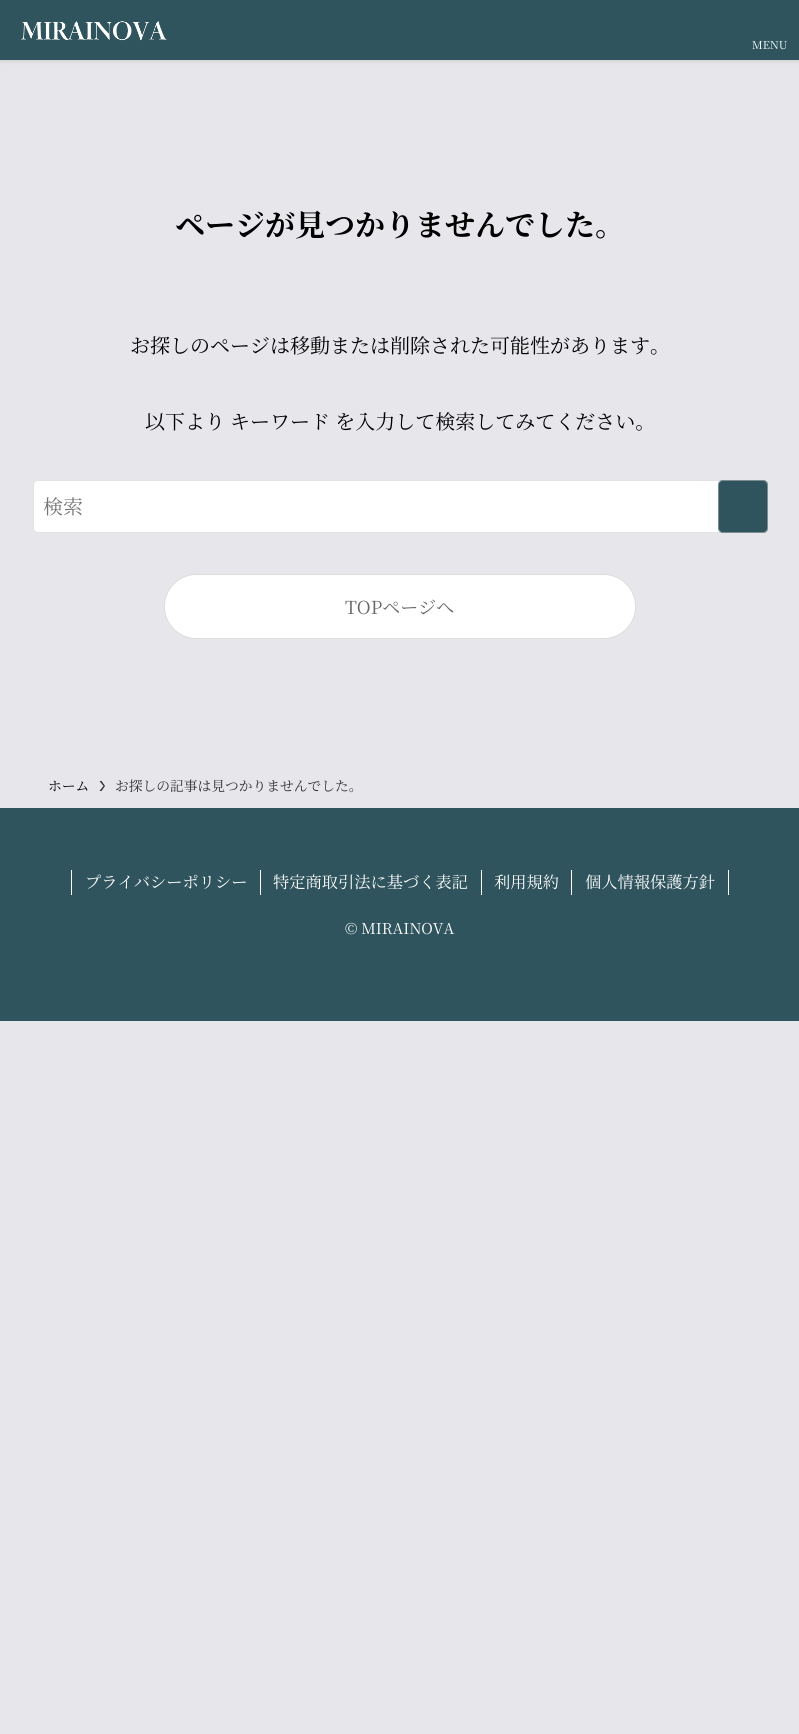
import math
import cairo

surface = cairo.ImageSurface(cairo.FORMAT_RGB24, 799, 1734)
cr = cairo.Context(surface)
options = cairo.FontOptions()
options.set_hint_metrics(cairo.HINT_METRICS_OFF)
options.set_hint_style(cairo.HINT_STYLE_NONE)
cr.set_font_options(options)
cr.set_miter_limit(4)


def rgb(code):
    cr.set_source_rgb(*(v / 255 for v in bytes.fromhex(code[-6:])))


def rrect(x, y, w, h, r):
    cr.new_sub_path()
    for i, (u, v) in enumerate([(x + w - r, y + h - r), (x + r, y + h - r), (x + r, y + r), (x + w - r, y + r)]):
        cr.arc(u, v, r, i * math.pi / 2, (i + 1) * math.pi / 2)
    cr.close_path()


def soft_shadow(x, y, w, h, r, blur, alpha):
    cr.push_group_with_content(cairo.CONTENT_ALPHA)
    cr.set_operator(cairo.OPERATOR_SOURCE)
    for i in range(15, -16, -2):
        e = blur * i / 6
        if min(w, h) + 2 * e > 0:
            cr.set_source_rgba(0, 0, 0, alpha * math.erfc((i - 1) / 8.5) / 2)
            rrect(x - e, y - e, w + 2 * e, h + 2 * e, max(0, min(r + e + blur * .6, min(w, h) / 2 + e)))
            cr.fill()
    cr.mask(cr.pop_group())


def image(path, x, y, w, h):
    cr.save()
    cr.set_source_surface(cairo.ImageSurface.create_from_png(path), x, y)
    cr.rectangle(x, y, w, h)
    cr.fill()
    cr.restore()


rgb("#e7e6eb")
cr.paint()
rgb("#000000")
soft_shadow(0, 1, 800, 60, 0, 2.5, 0.12)
rgb("#2f545d")
cr.rectangle(0, 0, 799, 60)
cr.fill()
image("img/1.png", 21, 21, 146, 20)
rgb("#ffffff")
rrect(33, 480, 735, 53, 5)
cr.fill()
rrect(33.5, 480.5, 734, 52, 4.5)
cr.set_source_rgba(0.78, 0.78, 0.78, 0.5)
cr.set_line_width(1)
cr.stroke()
rgb("#2f545d")
rrect(718, 480, 50, 53, 5)
cr.fill()
rrect(718.5, 480.5, 49, 52, 4.5)
cr.set_source_rgba(0.78, 0.78, 0.78, 0.5)
cr.stroke()
rrect(164.5, 574.5, 471, 64, 32)
rgb("#dcdcdc")
cr.stroke()
rgb("#ffffff")
rrect(165, 575, 470, 63, 31.5)
cr.fill()
rgb("#2e2e2f")
cr.new_path()
cr.move_to(101.5, 781)
cr.line_to(99.5, 781)
cr.line_to(103.5, 786)
cr.line_to(99.5, 791)
cr.line_to(101.5, 791)
cr.line_to(105, 786)
cr.close_path()
cr.fill()
for x, y, w, h, color in [
    (0, 808, 799, 213, "#2f545d"),
    (260, 870, 1, 25, "#ffffff"),
    (71, 870, 1, 25, "#ffffff"),
    (481, 870, 1, 25, "#ffffff"),
    (571, 870, 1, 25, "#ffffff"),
    (728, 870, 1, 25, "#ffffff"),
]:
    rgb(color)
    cr.rectangle(x, y, w, h)
    cr.fill()
cr.select_font_face("Noto Serif JP")
cr.set_font_size(11)
rgb("#f7ffff")
cr.move_to(752, 49)
cr.show_text("MENU")
cr.select_font_face("Noto Serif JP", cairo.FONT_SLANT_NORMAL, cairo.FONT_WEIGHT_BOLD)
cr.set_font_size(30)
rgb("#000000")
cr.move_to(175, 236)
cr.show_text("ページが見つかりませんでした。")
cr.select_font_face("Noto Serif JP")
cr.set_font_size(20)
cr.move_to(130, 353)
cr.show_text("お探しのページは移動または削除された可能性があります。")
cr.move_to(145, 429)
cr.show_text("以下より キーワード を入力して検索してみてください。")
rgb("#757575")
cr.move_to(43, 514)
cr.show_text("検索")
cr.set_font_size(18)
rgb("#666666")
cr.move_to(345, 614)
cr.show_text("TOPページへ")
cr.set_font_size(13.75)
rgb("#000000")
cr.move_to(48, 791)
cr.show_text("ホーム")
rgb("#2e2e2f")
cr.move_to(115, 791)
cr.show_text("お探しの記事は見つかりませんでした。")
cr.set_font_size(16.25)
rgb("#ffffff")
for x, y, s in [
    (85, 888, "プライバシーポリシー"),
    (273, 888, "特定商取引法に基づく表記"),
    (494, 888, "利用規約"),
    (585, 888, "個人情報保護方針"),
]:
    cr.move_to(x, y)
    cr.show_text(s)
cr.set_font_size(15)
cr.move_to(345, 934)
cr.show_text("© MIRAINOVA")
surface.write_to_png("page.png")
